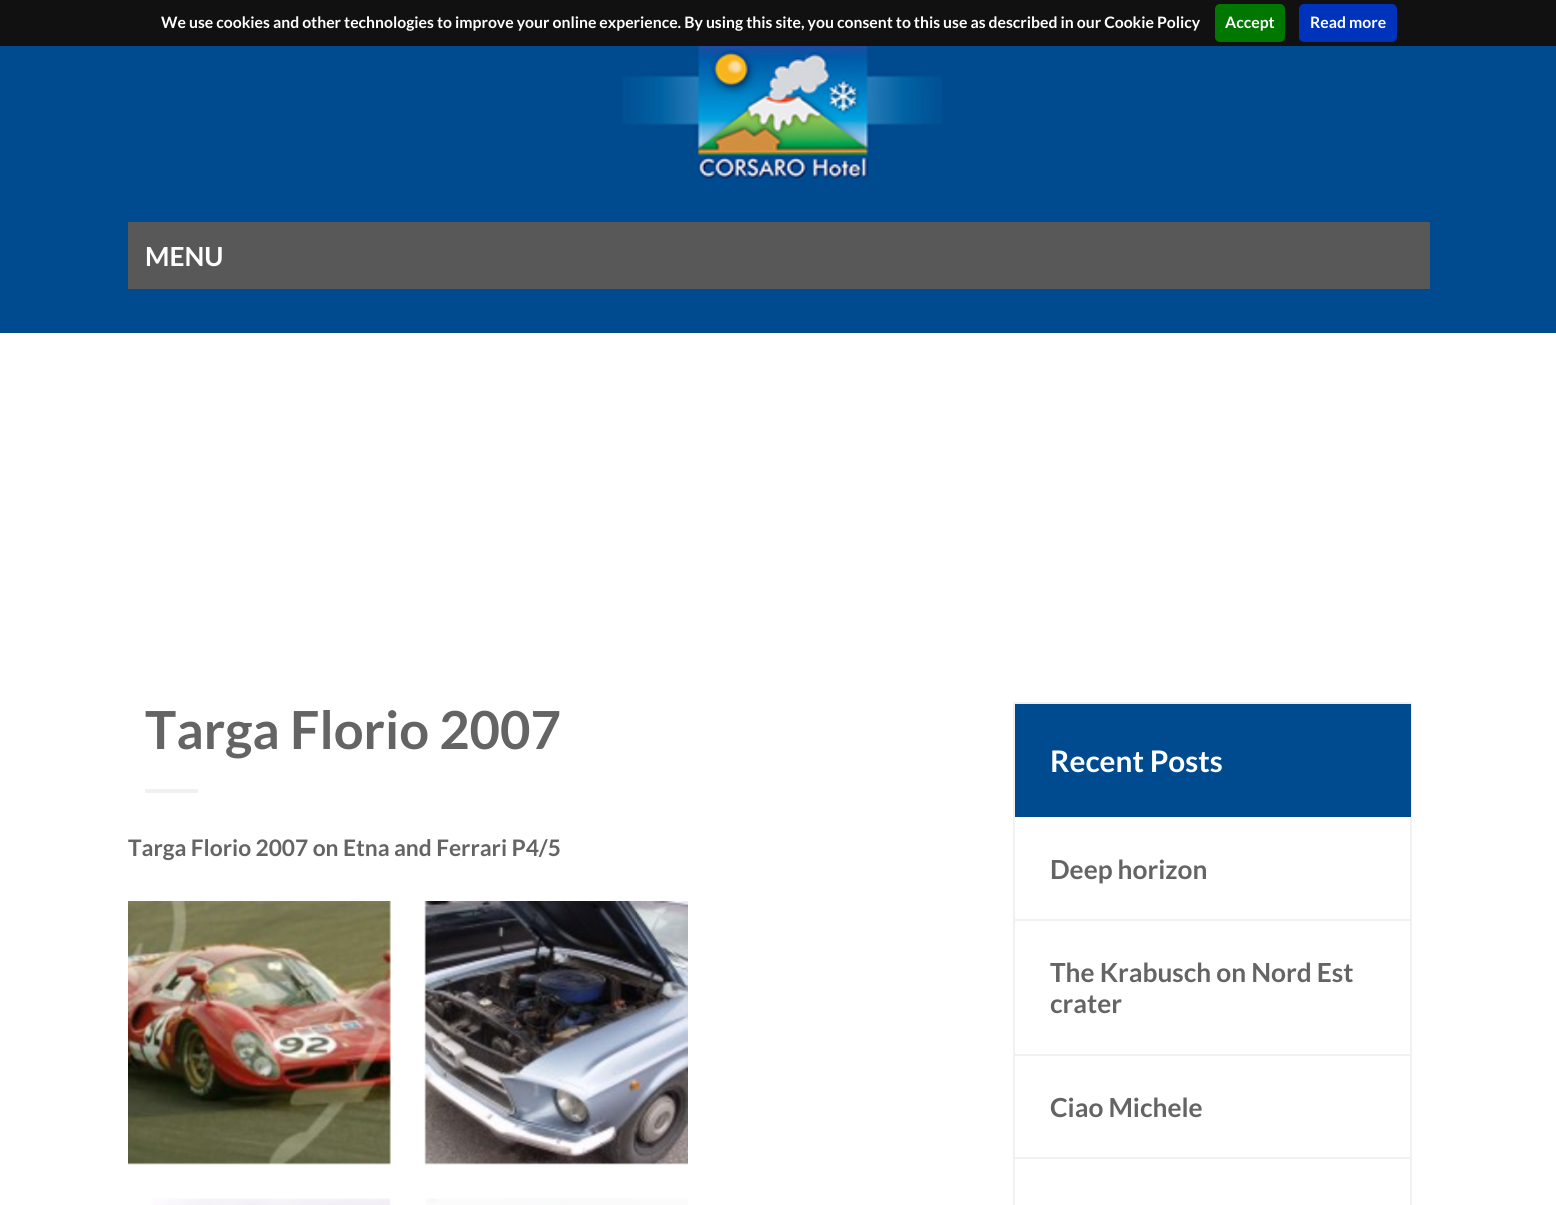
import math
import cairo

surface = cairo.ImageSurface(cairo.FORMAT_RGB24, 1556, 1205)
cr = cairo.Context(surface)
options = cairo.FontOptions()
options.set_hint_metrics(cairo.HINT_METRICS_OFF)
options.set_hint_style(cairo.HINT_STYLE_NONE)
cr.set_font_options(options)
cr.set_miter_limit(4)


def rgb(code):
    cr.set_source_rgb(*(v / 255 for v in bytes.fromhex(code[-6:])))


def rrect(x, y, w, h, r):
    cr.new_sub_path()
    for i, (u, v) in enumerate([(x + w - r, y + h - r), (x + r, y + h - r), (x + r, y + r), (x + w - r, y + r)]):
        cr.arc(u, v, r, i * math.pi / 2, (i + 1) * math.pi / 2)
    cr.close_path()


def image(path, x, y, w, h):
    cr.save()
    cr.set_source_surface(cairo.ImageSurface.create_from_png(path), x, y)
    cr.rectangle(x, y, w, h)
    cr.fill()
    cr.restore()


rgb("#ffffff")
cr.paint()
rgb("#111111")
cr.rectangle(0, 0, 1556, 46)
cr.fill()
rgb("#007700")
rrect(1215, 4, 70, 38, 5)
cr.fill()
rgb("#0033bb")
rrect(1299, 4, 98, 38, 5)
cr.fill()
rgb("#004b8f")
cr.rectangle(0, 46, 1556, 287)
cr.fill()
image("img/1.png", 622, 46, 320, 134)
rgb("#585858")
cr.rectangle(128, 222, 1302, 67)
cr.fill()
rgb("#f1f1f1")
cr.rectangle(145, 789, 53, 4)
cr.fill()
image("img/2.png", 128, 901, 263, 264)
image("img/3.png", 424, 901, 264, 264)
image("img/4.png", 152, 1198, 239, 7)
image("img/5.png", 426, 1198, 262, 7)
cr.rectangle(1014, 703, 397, 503)
cr.stroke()
for x, y, w, h, color in [
    (1015, 704, 396, 113, "#004b8f"),
    (1015, 919, 396, 2, "#f1f1f1"),
    (1015, 1054, 396, 2, "#f1f1f1"),
    (1015, 1157, 396, 2, "#f1f1f1"),
]:
    rgb(color)
    cr.rectangle(x, y, w, h)
    cr.fill()
cr.select_font_face("Lato", cairo.FONT_SLANT_NORMAL, cairo.FONT_WEIGHT_BOLD)
cr.set_font_size(15.75)
rgb("#ffffff")
for x, y, s in [
    (161, 28, "We use cookies and other technologies to improve your online experience. By using this site, you consent to this use as described in our Cookie Policy"),
    (1225, 28, "Accept"),
    (1310, 28, "Read more"),
]:
    cr.move_to(x, y)
    cr.show_text(s)
cr.set_font_size(26.25)
cr.move_to(145, 266)
cr.show_text("MENU")
cr.set_font_size(52.5)
rgb("#646464")
cr.move_to(145, 749)
cr.show_text("Targa Florio 2007")
cr.set_font_size(22.75)
cr.move_to(128, 856)
cr.show_text("Targa Florio 2007 on Etna and Ferrari P4/5")
cr.set_font_size(29.75)
rgb("#ffffff")
cr.move_to(1050, 772)
cr.show_text("Recent Posts")
cr.set_font_size(26.25)
rgb("#646464")
for x, y, s in [
    (1050, 879, "Deep horizon"),
    (1050, 982, "The Krabusch on Nord Est"),
    (1050, 1013, "crater"),
    (1050, 1117, "Ciao Michele"),
]:
    cr.move_to(x, y)
    cr.show_text(s)
surface.write_to_png("page.png")
